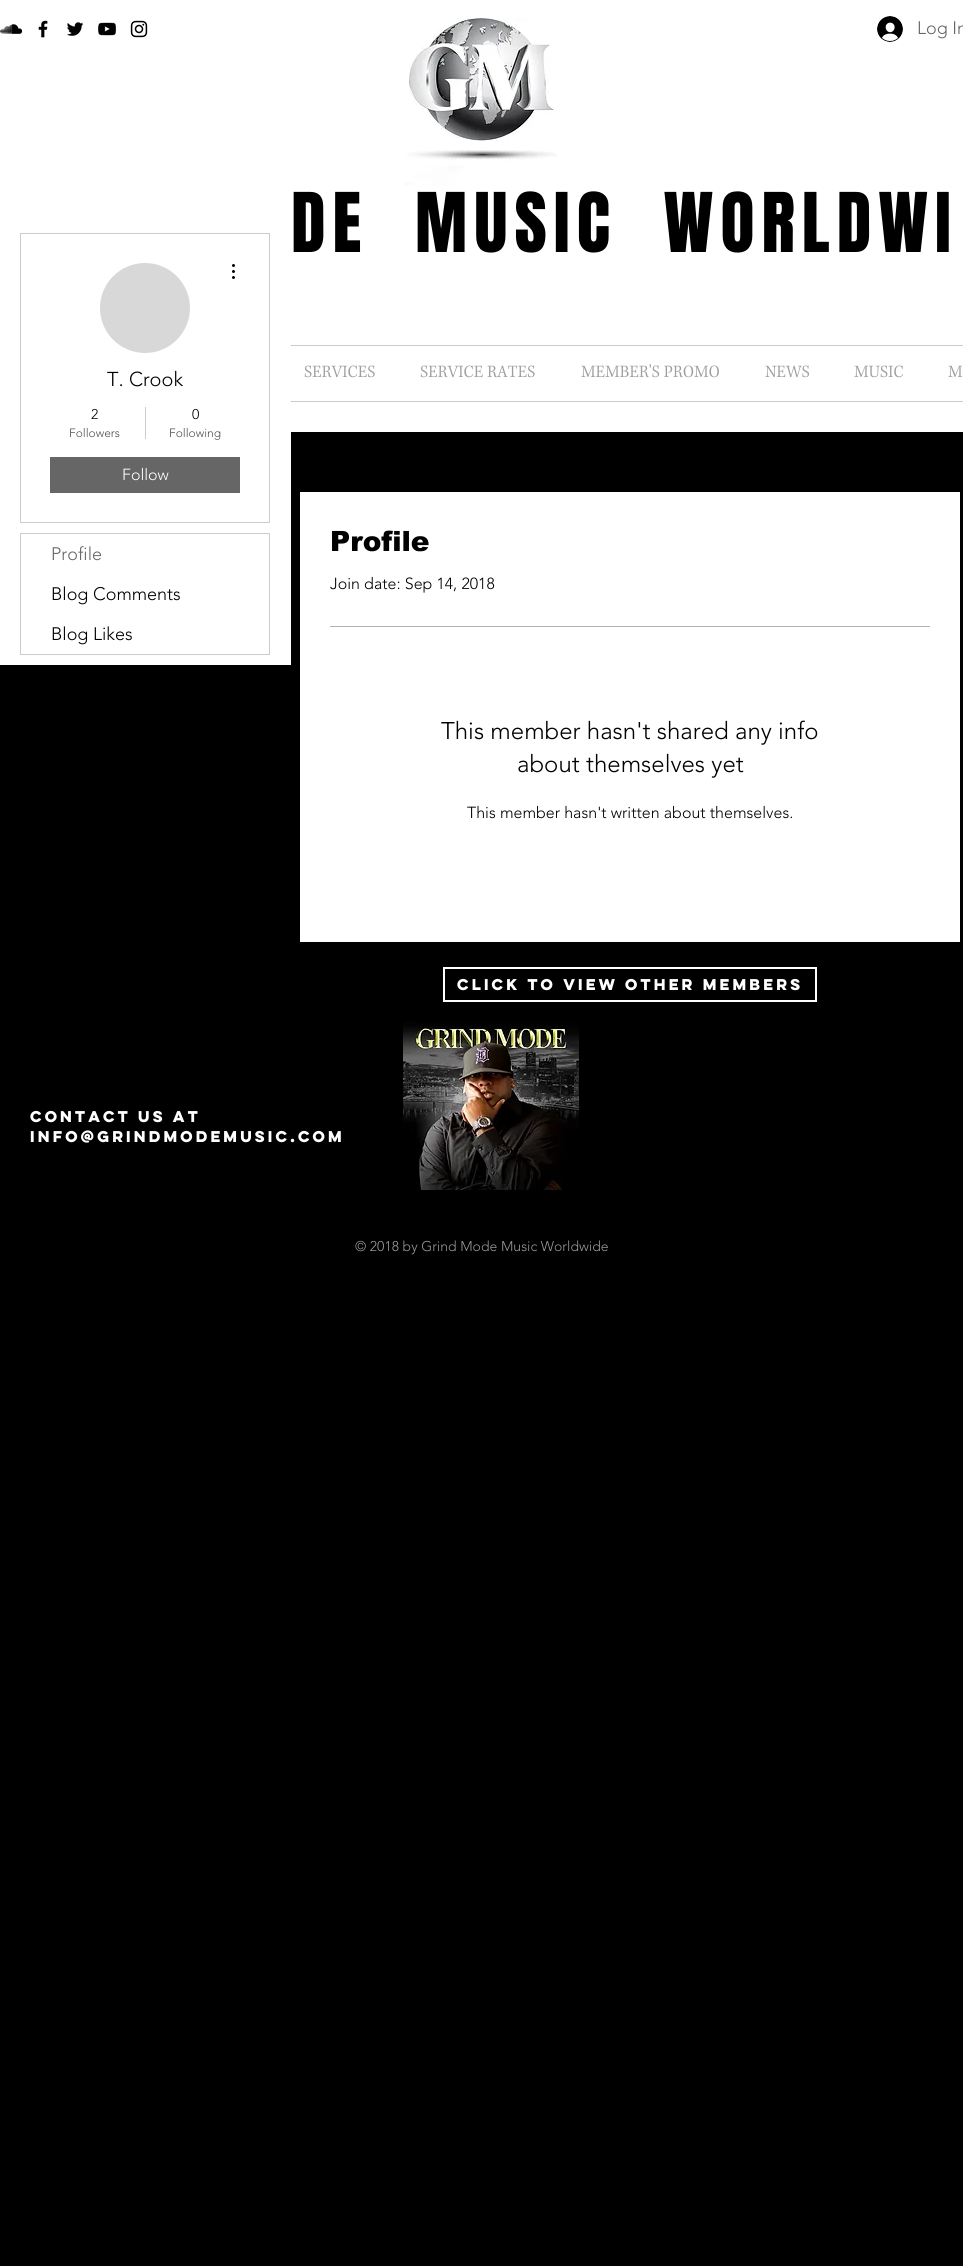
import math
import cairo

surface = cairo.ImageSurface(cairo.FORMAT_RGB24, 963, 2266)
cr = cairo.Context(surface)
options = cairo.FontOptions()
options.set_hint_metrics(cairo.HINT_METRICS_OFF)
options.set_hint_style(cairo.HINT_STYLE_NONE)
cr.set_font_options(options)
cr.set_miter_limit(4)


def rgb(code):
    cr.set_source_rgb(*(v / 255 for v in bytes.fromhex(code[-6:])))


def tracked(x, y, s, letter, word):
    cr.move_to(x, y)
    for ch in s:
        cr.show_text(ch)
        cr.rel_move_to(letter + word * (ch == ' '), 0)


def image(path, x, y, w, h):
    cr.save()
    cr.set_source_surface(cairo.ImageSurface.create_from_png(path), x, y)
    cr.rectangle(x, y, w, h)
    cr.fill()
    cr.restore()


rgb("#000000")
cr.paint()
rgb("#ffffff")
cr.rectangle(0, 0, 963, 432)
cr.fill()
image("img/1.png", 0, 24, 22, 10)
image("img/2.png", 38, 20, 10, 18)
image("img/3.png", 67, 22, 17, 14)
image("img/4.png", 98, 22, 19, 14)
image("img/5.png", 130, 20, 18, 18)
image("img/6.png", 405, 18, 152, 168)
image("img/7.png", 877, 16, 26, 26)
rgb("#cacaca")
cr.rectangle(291, 345, 672, 1)
cr.fill()
cr.rectangle(291, 401, 672, 1)
cr.fill()
image("img/8.png", 304, 365, 71, 13)
image("img/9.png", 420, 365, 115, 13)
image("img/10.png", 581, 364, 138, 14)
image("img/11.png", 765, 365, 44, 13)
image("img/12.png", 854, 365, 49, 13)
image("img/13.png", 948, 365, 15, 13)
rgb("#ffffff")
cr.rectangle(0, 432, 291, 233)
cr.fill()
cr.rectangle(20.5, 233.5, 249, 289)
rgb("#cccccc")
cr.set_line_width(1)
cr.stroke()
rgb("#d8d8d8")
cr.arc(145, 308, 45, 0, 2 * math.pi)
cr.fill()
image("img/14.png", 232, 264, 3, 15)
rgb("#cccccc")
cr.rectangle(145, 407, 1, 32)
cr.fill()
rgb("#666666")
cr.rectangle(50, 457, 190, 36)
cr.fill()
cr.rectangle(20.5, 533.5, 249, 121)
rgb("#cccccc")
cr.stroke()
rgb("#ffffff")
cr.rectangle(300, 492, 660, 450)
cr.fill()
rgb("#b3b3b3")
cr.rectangle(330, 626, 600, 1)
cr.fill()
cr.rectangle(444, 968, 372, 33)
rgb("#ffffff")
cr.set_line_width(2)
cr.stroke()
image("img/15.png", 403, 1022, 176, 168)
cr.select_font_face("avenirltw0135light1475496 Light")
cr.set_font_size(18)
rgb("#666666")
cr.move_to(917, 34)
cr.show_text("Log In")
cr.select_font_face("Anton")
cr.set_font_size(70)
rgb("#000000")
tracked(291, 252, "DE  MUSIC  WORLDWI", 7, 0)
cr.select_font_face("avenirltw0135light1475496 Light")
cr.set_font_size(20)
cr.move_to(107, 386)
cr.show_text("T. Crook")
cr.set_font_size(14)
cr.move_to(91, 419)
cr.show_text("2")
cr.set_font_size(12)
rgb("#4d4d4d")
cr.move_to(69, 437)
cr.show_text("Followers")
cr.set_font_size(14)
rgb("#000000")
cr.move_to(192, 419)
cr.show_text("0")
cr.set_font_size(12)
rgb("#4d4d4d")
cr.move_to(169, 437)
cr.show_text("Following")
cr.set_font_size(16)
rgb("#ffffff")
cr.move_to(122, 480)
cr.show_text("Follow")
cr.set_font_size(18)
rgb("#666666")
cr.move_to(51, 560)
cr.show_text("Profile")
rgb("#000000")
cr.move_to(51, 600)
cr.show_text("Blog Comments")
cr.move_to(51, 640)
cr.show_text("Blog Likes")
cr.select_font_face("arial Black")
cr.set_font_size(28)
cr.move_to(330, 551)
cr.show_text("Profile")
cr.select_font_face("avenirltw0135light1475496 Light")
cr.set_font_size(16)
cr.move_to(330, 589)
cr.show_text("Join date: Sep 14, 2018")
cr.set_font_size(24)
cr.move_to(441, 739)
cr.show_text("This member hasn't shared any info")
cr.move_to(517, 772)
cr.show_text("about themselves yet")
cr.set_font_size(16)
cr.move_to(467, 818)
cr.show_text("This member hasn't written about themselves.")
cr.select_font_face("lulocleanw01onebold", cairo.FONT_SLANT_NORMAL, cairo.FONT_WEIGHT_BOLD)
cr.set_font_size(14)
rgb("#ffffff")
for x, y, s in [
    (457, 990, "CLICK TO VIEW OTHER MEMBERS"),
    (30, 1122, "Contact us at"),
    (30, 1142, "info@grindmodemusic.com"),
]:
    cr.move_to(x, y)
    cr.show_text(s)
cr.select_font_face("avenirltw0135light1475496 Light")
rgb("#999997")
cr.move_to(355, 1251)
cr.show_text("© 2018 by Grind Mode Music Worldwide")
surface.write_to_png("page.png")
